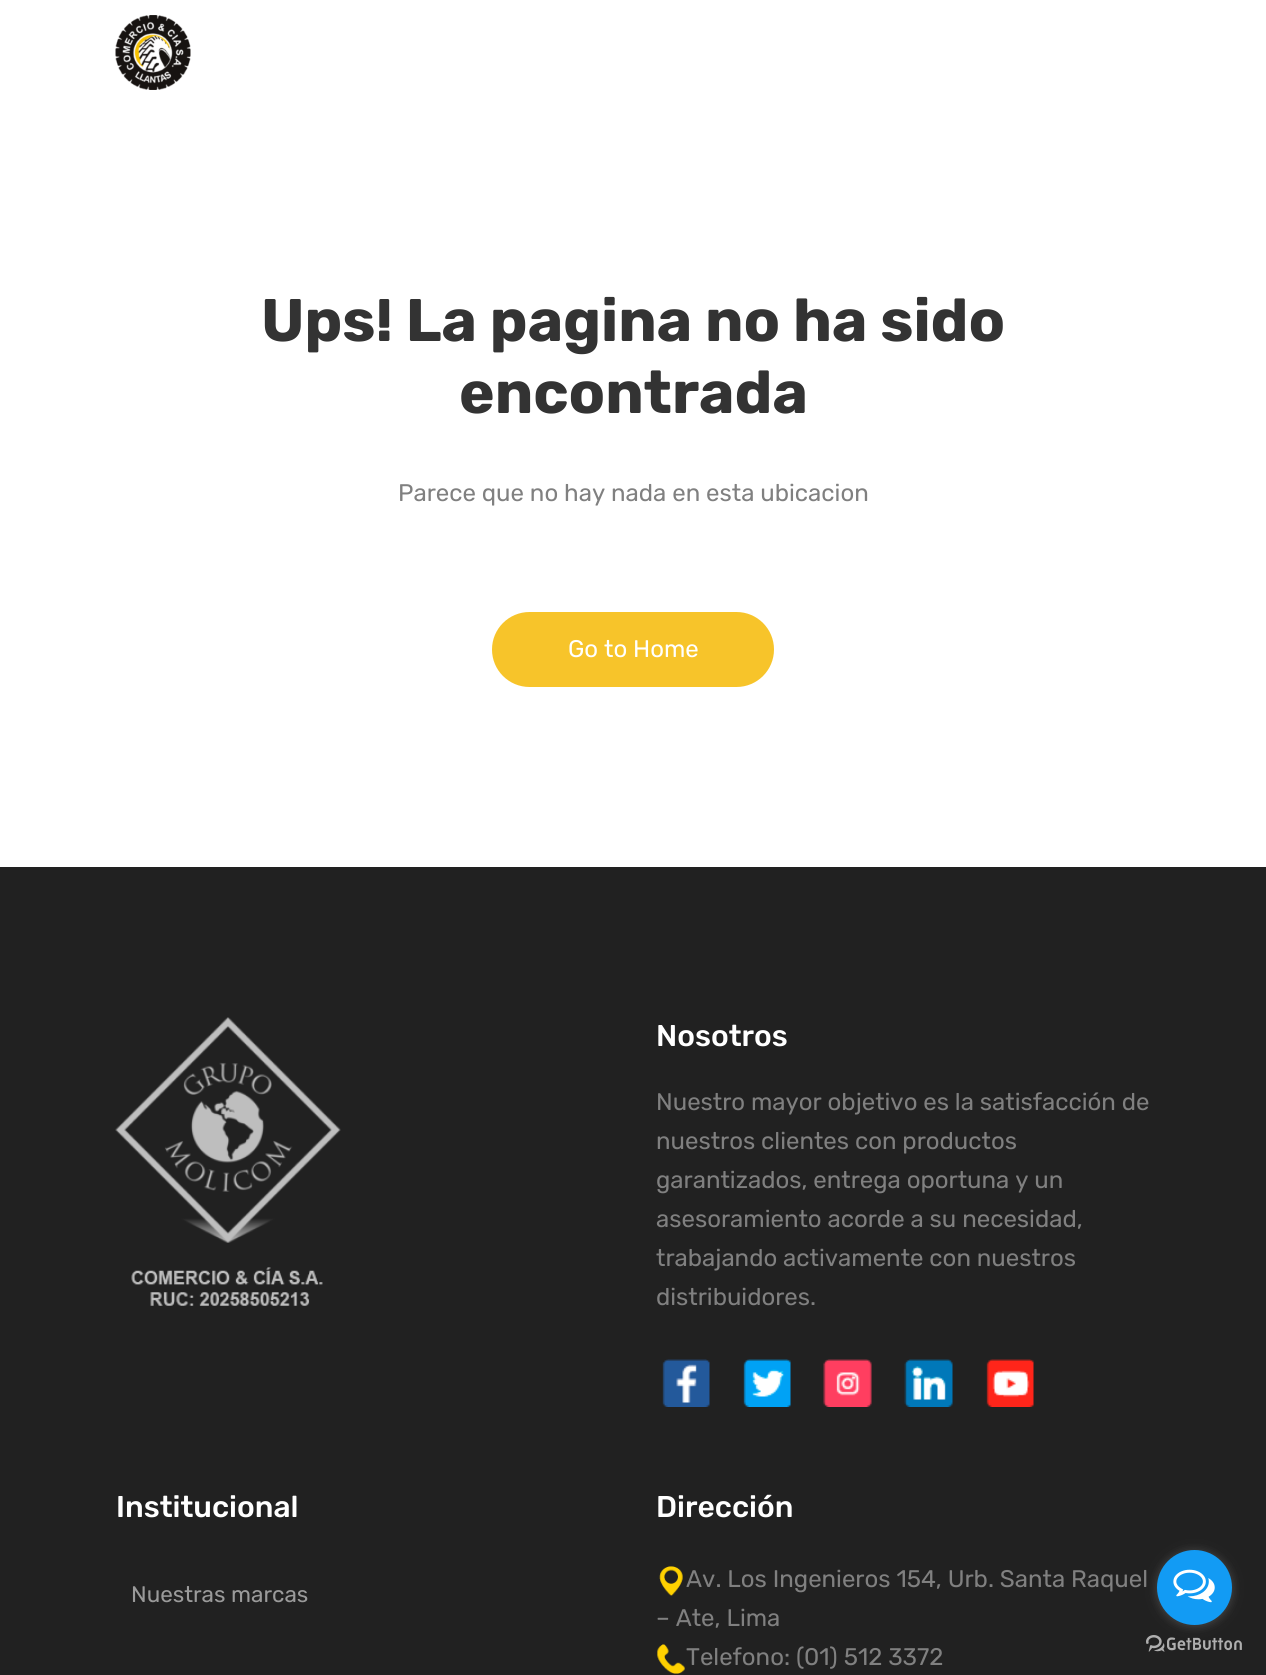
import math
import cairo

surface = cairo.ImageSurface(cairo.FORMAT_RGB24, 1266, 1675)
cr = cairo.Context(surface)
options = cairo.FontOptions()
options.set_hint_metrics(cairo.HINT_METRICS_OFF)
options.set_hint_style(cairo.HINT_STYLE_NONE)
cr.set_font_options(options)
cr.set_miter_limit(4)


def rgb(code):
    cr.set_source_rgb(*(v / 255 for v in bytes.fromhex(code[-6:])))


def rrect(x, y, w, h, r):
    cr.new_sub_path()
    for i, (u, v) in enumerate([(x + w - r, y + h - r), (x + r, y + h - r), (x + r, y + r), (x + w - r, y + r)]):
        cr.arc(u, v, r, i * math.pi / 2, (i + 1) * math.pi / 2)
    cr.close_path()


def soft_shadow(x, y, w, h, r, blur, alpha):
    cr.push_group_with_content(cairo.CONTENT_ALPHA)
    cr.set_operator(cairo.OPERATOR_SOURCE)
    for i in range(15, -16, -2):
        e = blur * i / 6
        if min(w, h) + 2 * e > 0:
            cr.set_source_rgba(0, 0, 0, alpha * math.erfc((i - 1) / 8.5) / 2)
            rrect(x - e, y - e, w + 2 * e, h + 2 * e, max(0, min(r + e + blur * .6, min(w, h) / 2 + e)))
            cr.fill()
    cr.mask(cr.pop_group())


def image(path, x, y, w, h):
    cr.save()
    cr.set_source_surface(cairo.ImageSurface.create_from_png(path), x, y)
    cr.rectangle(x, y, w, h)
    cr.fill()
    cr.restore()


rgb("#ffffff")
cr.paint()
image("img/1.png", 115, 15, 76, 75)
rgb("#f7c42a")
rrect(492, 612, 282, 75, 37.5)
cr.fill()
rgb("#212121")
cr.rectangle(0, 867, 1266, 808)
cr.fill()
image("img/2.png", 115, 1017, 226, 289)
image("img/3.png", 662, 1359, 48, 48)
image("img/4.png", 743, 1359, 48, 48)
image("img/5.png", 823, 1359, 49, 48)
image("img/6.png", 904, 1359, 49, 48)
image("img/7.png", 986, 1359, 48, 48)
image("img/8.png", 659, 1566, 24, 30)
image("img/9.png", 657, 1644, 28, 30)
image("img/11.png", 1146, 1635, 96, 17)
rgb("#888888")
soft_shadow(1157, 1551, 75, 75, 37.5, 5, 0.4)
rgb("#129bf4")
cr.arc(1194.5, 1587.5, 37.5, 0, 2 * math.pi)
cr.fill()
image("img/10.png", 1173, 1569, 42, 34)
cr.select_font_face("Rubik", cairo.FONT_SLANT_NORMAL, cairo.FONT_WEIGHT_BOLD)
cr.set_font_size(60)
rgb("#333333")
cr.move_to(261, 341)
cr.show_text("Ups! La pagina no ha sido")
cr.move_to(459, 413)
cr.show_text("encontrada")
cr.select_font_face("Rubik")
cr.set_font_size(24)
rgb("#808080")
cr.move_to(398, 501)
cr.show_text("Parece que no hay nada en esta ubicacion")
rgb("#ffffff")
cr.move_to(568, 657)
cr.show_text("Go to Home")
cr.select_font_face("Rubik Light")
cr.set_font_size(30)
cr.move_to(656, 1046)
cr.show_text("Nosotros")
cr.select_font_face("Rubik")
cr.set_font_size(24)
rgb("#808080")
for x, y, s in [
    (656, 1110, "Nuestro mayor objetivo es la satisfacción de"),
    (656, 1149, "nuestros clientes con productos"),
    (656, 1188, "garantizados, entrega oportuna y un"),
    (656, 1227, "asesoramiento acorde a su necesidad,"),
    (656, 1266, "trabajando activamente con nuestros"),
    (656, 1305, "distribuidores."),
]:
    cr.move_to(x, y)
    cr.show_text(s)
cr.select_font_face("Rubik Light")
cr.set_font_size(30)
rgb("#ffffff")
cr.move_to(116, 1517)
cr.show_text("Institucional")
cr.select_font_face("Rubik")
cr.set_font_size(22.5)
rgb("#9a9a9a")
cr.move_to(131, 1602)
cr.show_text("Nuestras marcas")
cr.select_font_face("Rubik Light")
cr.set_font_size(30)
rgb("#ffffff")
cr.move_to(656, 1517)
cr.show_text("Dirección")
cr.select_font_face("Rubik")
cr.set_font_size(24)
rgb("#808080")
for x, y, s in [
    (686, 1587, "Av. Los Ingenieros 154, Urb. Santa Raquel"),
    (656, 1626, "– Ate, Lima"),
    (686, 1665, "Telefono: (01) 512 3372"),
]:
    cr.move_to(x, y)
    cr.show_text(s)
surface.write_to_png("page.png")
